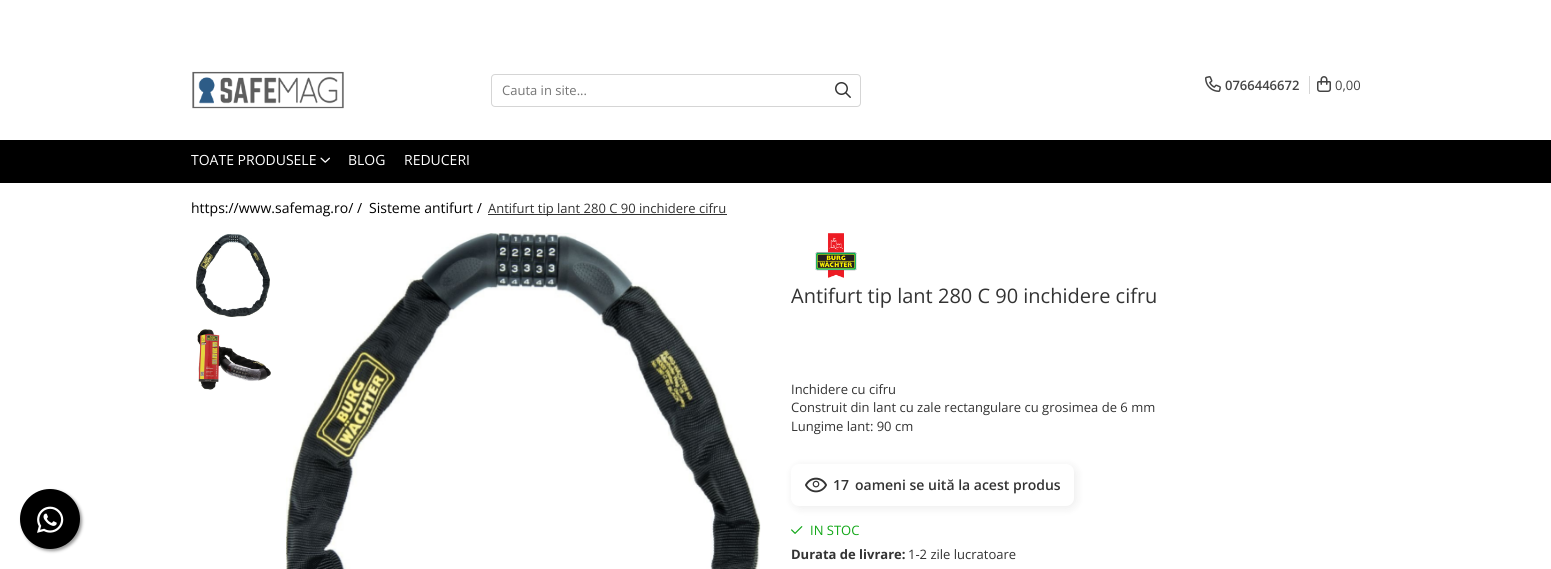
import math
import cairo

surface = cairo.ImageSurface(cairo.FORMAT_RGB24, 1551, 569)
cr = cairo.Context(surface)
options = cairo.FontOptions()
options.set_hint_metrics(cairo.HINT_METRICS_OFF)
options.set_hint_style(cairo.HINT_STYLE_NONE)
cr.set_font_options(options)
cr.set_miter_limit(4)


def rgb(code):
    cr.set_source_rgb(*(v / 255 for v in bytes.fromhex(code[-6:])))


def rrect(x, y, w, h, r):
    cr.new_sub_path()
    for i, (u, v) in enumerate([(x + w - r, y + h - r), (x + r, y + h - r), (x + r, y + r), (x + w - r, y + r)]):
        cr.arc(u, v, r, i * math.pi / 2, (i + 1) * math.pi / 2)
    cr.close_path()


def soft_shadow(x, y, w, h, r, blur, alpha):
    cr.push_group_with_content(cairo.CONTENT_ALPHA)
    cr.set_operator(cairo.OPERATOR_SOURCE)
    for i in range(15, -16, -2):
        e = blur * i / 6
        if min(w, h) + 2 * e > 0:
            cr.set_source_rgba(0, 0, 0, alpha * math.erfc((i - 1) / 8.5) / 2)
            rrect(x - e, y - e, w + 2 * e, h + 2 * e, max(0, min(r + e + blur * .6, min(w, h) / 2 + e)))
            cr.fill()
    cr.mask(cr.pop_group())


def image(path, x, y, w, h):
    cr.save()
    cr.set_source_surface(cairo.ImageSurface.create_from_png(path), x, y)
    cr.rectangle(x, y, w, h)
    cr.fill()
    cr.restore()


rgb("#ffffff")
cr.paint()
rgb("#999999")
soft_shadow(22, 491, 60, 60, 30, 1.5, 1)
rgb("#000000")
cr.arc(50, 519, 30, 0, 2 * math.pi)
cr.fill()
image("img/1.png", 37, 506, 27, 27)
image("img/2.png", 192, 71, 152, 38)
rrect(491.5, 74.5, 369, 32, 3.5)
rgb("#d5d5d5")
cr.set_line_width(1)
cr.stroke()
image("img/3.png", 835, 82, 16, 16)
image("img/4.png", 1205, 76, 16, 16)
cr.rectangle(1309, 76, 1, 18)
cr.fill()
image("img/5.png", 1317, 76, 14, 16)
rgb("#000000")
cr.rectangle(0, 140, 1551, 43)
cr.fill()
image("img/6.png", 320, 157, 10, 6)
rgb("#333333")
cr.rectangle(488, 214, 239, 1)
cr.fill()
image("img/7.png", 196, 234, 74, 83)
image("img/8.png", 197, 329, 74, 61)
image("img/9.png", 286, 233, 475, 336)
image("img/10.png", 815, 233, 42, 45)
rgb("#000000")
soft_shadow(793, 466, 283, 42, 8, 5, 0.08)
rgb("#ffffff")
rrect(791, 464, 283, 42, 8)
cr.fill()
image("img/11.png", 805, 477, 22, 16)
image("img/12.png", 791, 526, 12, 8)
cr.select_font_face("Open Sans")
cr.set_font_size(13)
rgb("#757575")
cr.move_to(502, 95)
cr.show_text("Cauta in site...")
cr.select_font_face("Open Sans SemiBold")
rgb("#444444")
cr.move_to(1225, 90)
cr.show_text("0766446672")
cr.select_font_face("Open Sans")
cr.move_to(1335, 90)
cr.show_text("0,00")
cr.set_font_size(14)
rgb("#ffffff")
for x, y, s in [
    (191, 165, "TOATE PRODUSELE"),
    (348, 165, "BLOG"),
    (404, 165, "REDUCERI"),
]:
    cr.move_to(x, y)
    cr.show_text(s)
rgb("#000000")
cr.move_to(191, 213)
cr.show_text("https://www.safemag.ro/ /")
cr.move_to(369, 213)
cr.show_text("Sisteme antifurt /")
cr.set_font_size(13)
rgb("#333333")
cr.move_to(488, 213)
cr.show_text("Antifurt tip lant 280 C 90 inchidere cifru")
cr.set_font_size(20)
cr.move_to(791, 303)
cr.show_text("Antifurt tip lant 280 C 90 inchidere cifru")
cr.set_font_size(13)
for x, y, s in [
    (791, 394, "Inchidere cu cifru"),
    (791, 412, "Construit din lant cu zale rectangulare cu grosimea de 6 mm"),
    (791, 431, "Lungime lant: 90 cm"),
]:
    cr.move_to(x, y)
    cr.show_text(s)
cr.select_font_face("Open Sans SemiBold")
cr.set_font_size(14)
cr.move_to(833, 490)
cr.show_text("17")
cr.move_to(855, 490)
cr.show_text("oameni se uită la acest produs")
cr.select_font_face("Open Sans")
cr.set_font_size(13)
rgb("#11a717")
cr.move_to(810, 535)
cr.show_text("IN STOC")
cr.select_font_face("Open Sans", cairo.FONT_SLANT_NORMAL, cairo.FONT_WEIGHT_BOLD)
rgb("#333333")
cr.move_to(791, 559)
cr.show_text("Durata de livrare:")
cr.select_font_face("Open Sans")
cr.move_to(908, 559)
cr.show_text("1-2 zile lucratoare")
surface.write_to_png("page.png")
